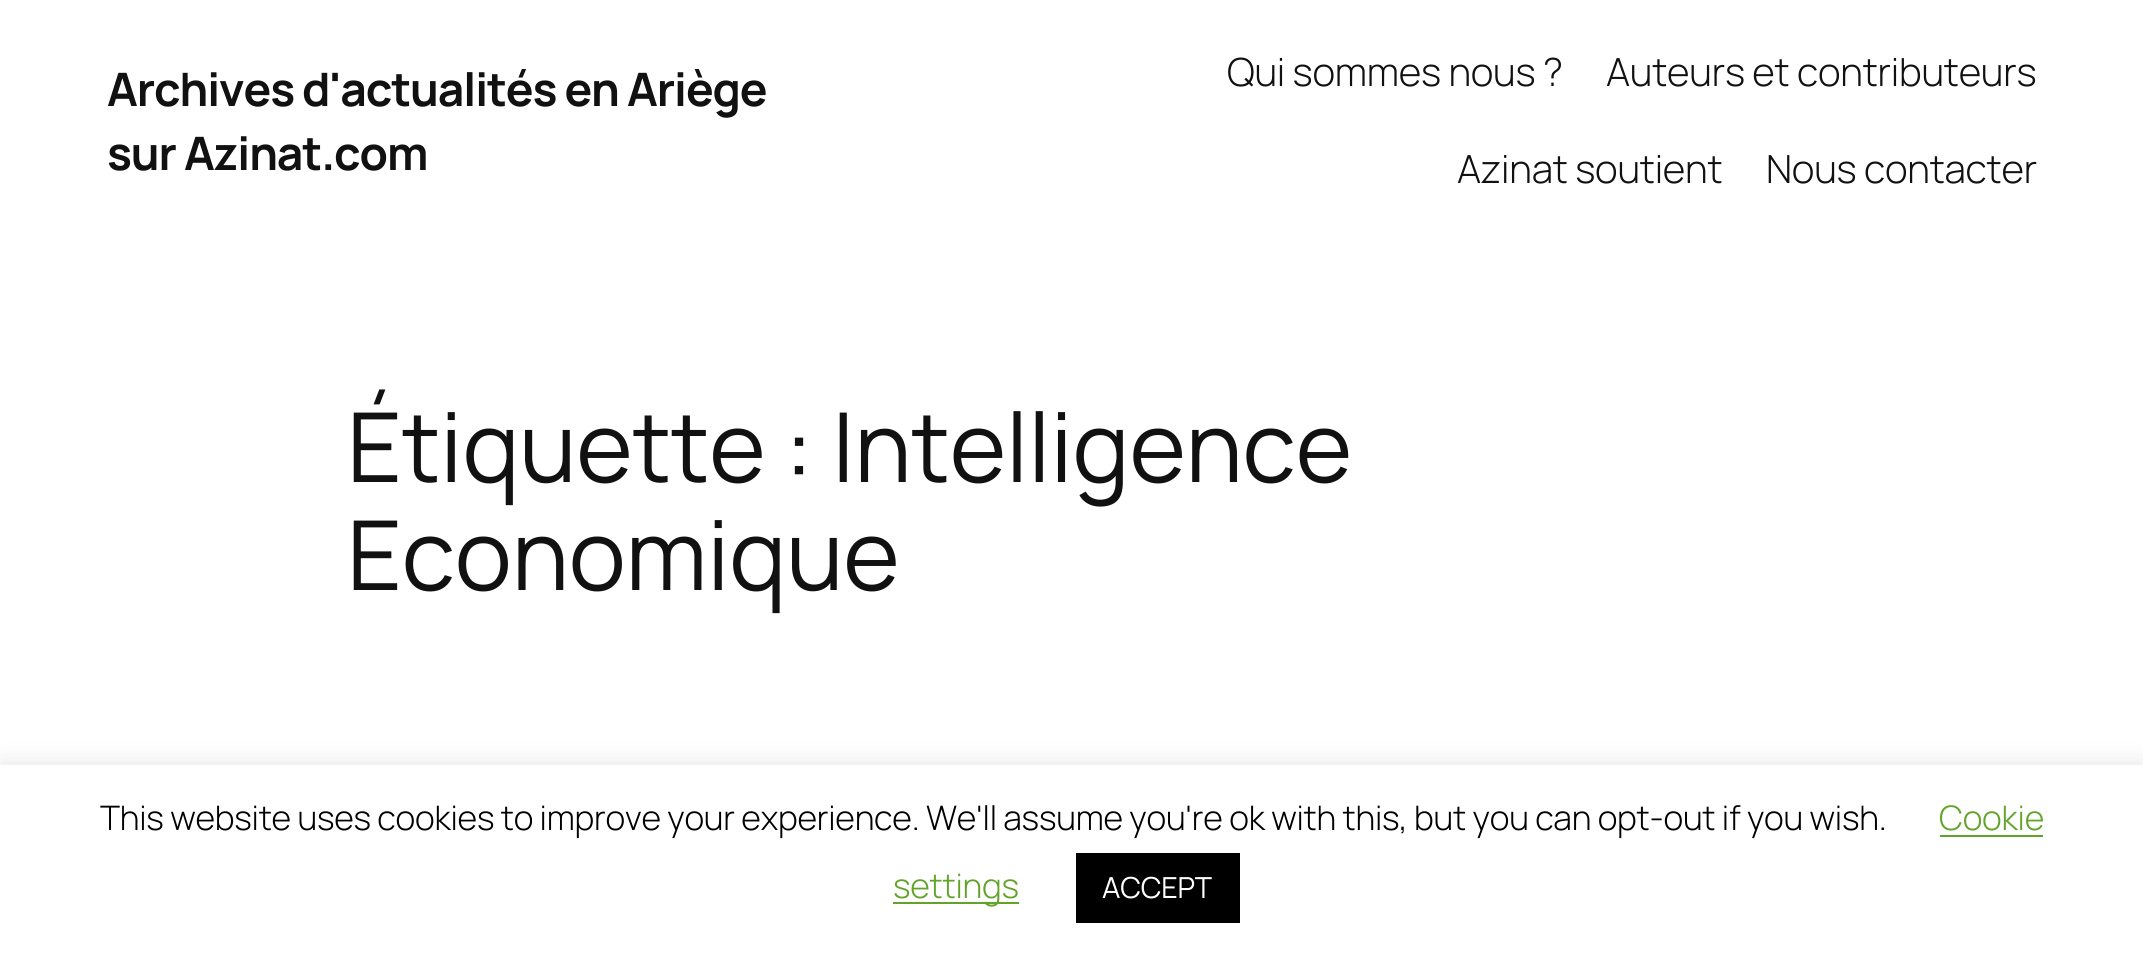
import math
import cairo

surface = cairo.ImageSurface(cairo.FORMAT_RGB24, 2143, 960)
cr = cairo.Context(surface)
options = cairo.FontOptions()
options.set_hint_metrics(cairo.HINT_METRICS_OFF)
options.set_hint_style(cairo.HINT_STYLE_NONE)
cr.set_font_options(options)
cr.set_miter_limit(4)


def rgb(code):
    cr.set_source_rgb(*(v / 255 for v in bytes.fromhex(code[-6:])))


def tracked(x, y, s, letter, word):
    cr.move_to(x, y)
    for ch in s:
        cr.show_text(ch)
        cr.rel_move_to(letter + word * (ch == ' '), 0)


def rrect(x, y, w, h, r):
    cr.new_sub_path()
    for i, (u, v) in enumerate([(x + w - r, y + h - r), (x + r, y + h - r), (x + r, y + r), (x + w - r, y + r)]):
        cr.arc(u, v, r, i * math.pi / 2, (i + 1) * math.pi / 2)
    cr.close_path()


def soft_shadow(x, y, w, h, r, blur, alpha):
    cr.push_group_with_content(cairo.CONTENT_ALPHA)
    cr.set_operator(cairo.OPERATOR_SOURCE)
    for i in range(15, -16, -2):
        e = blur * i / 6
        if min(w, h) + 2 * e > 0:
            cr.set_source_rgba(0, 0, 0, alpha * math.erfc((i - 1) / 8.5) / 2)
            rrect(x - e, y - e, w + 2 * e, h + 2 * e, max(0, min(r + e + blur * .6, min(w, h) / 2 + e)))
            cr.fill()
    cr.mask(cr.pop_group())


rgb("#ffffff")
cr.paint()
rgb("#acabab")
soft_shadow(0, 763, 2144, 196, 0, 11, 0.3)
for x, y, w, h, color in [
    (0, 765, 2143, 195, "#ffffff"),
    (1940, 835, 103, 2, "#62a329"),
    (893, 902, 126, 2, "#62a329"),
    (1076, 853, 164, 70, "#000000"),
]:
    rgb(color)
    cr.rectangle(x, y, w, h)
    cr.fill()
cr.select_font_face("Manrope", cairo.FONT_SLANT_NORMAL, cairo.FONT_WEIGHT_BOLD)
cr.set_font_size(46.1)
rgb("#111111")
tracked(107, 106, "Archives d'actualités en Ariège", -1.1, 0)
tracked(107, 170, "sur Azinat.com", -1.1, 0)
cr.select_font_face("Manrope Light")
cr.set_font_size(38.75)
for x, y, s in [
    (1227, 86, "Qui sommes nous ?"),
    (1606, 86, "Auteurs et contributeurs"),
    (1457, 183, "Azinat soutient"),
    (1766, 183, "Nous contacter"),
]:
    tracked(x, y, s, -0.23, 0)
cr.select_font_face("Manrope")
cr.set_font_size(96.4)
tracked(347, 482, "Étiquette : Intelligence", -0.23, 0)
tracked(347, 590, "Economique", -0.23, 0)
cr.select_font_face("Manrope Light")
cr.set_font_size(33.75)
rgb("#000000")
tracked(100, 830, "This website uses cookies to improve your experience. We'll assume you're ok with this, but you can opt-out if you wish.", -0.23, 0)
rgb("#62a329")
tracked(1939, 830, "Cookie", -0.23, 0)
tracked(893, 898, "settings", -0.23, 0)
cr.select_font_face("Manrope")
cr.set_font_size(29)
rgb("#ffffff")
tracked(1102, 898, "ACCEPT", -0.23, 0)
surface.write_to_png("page.png")
